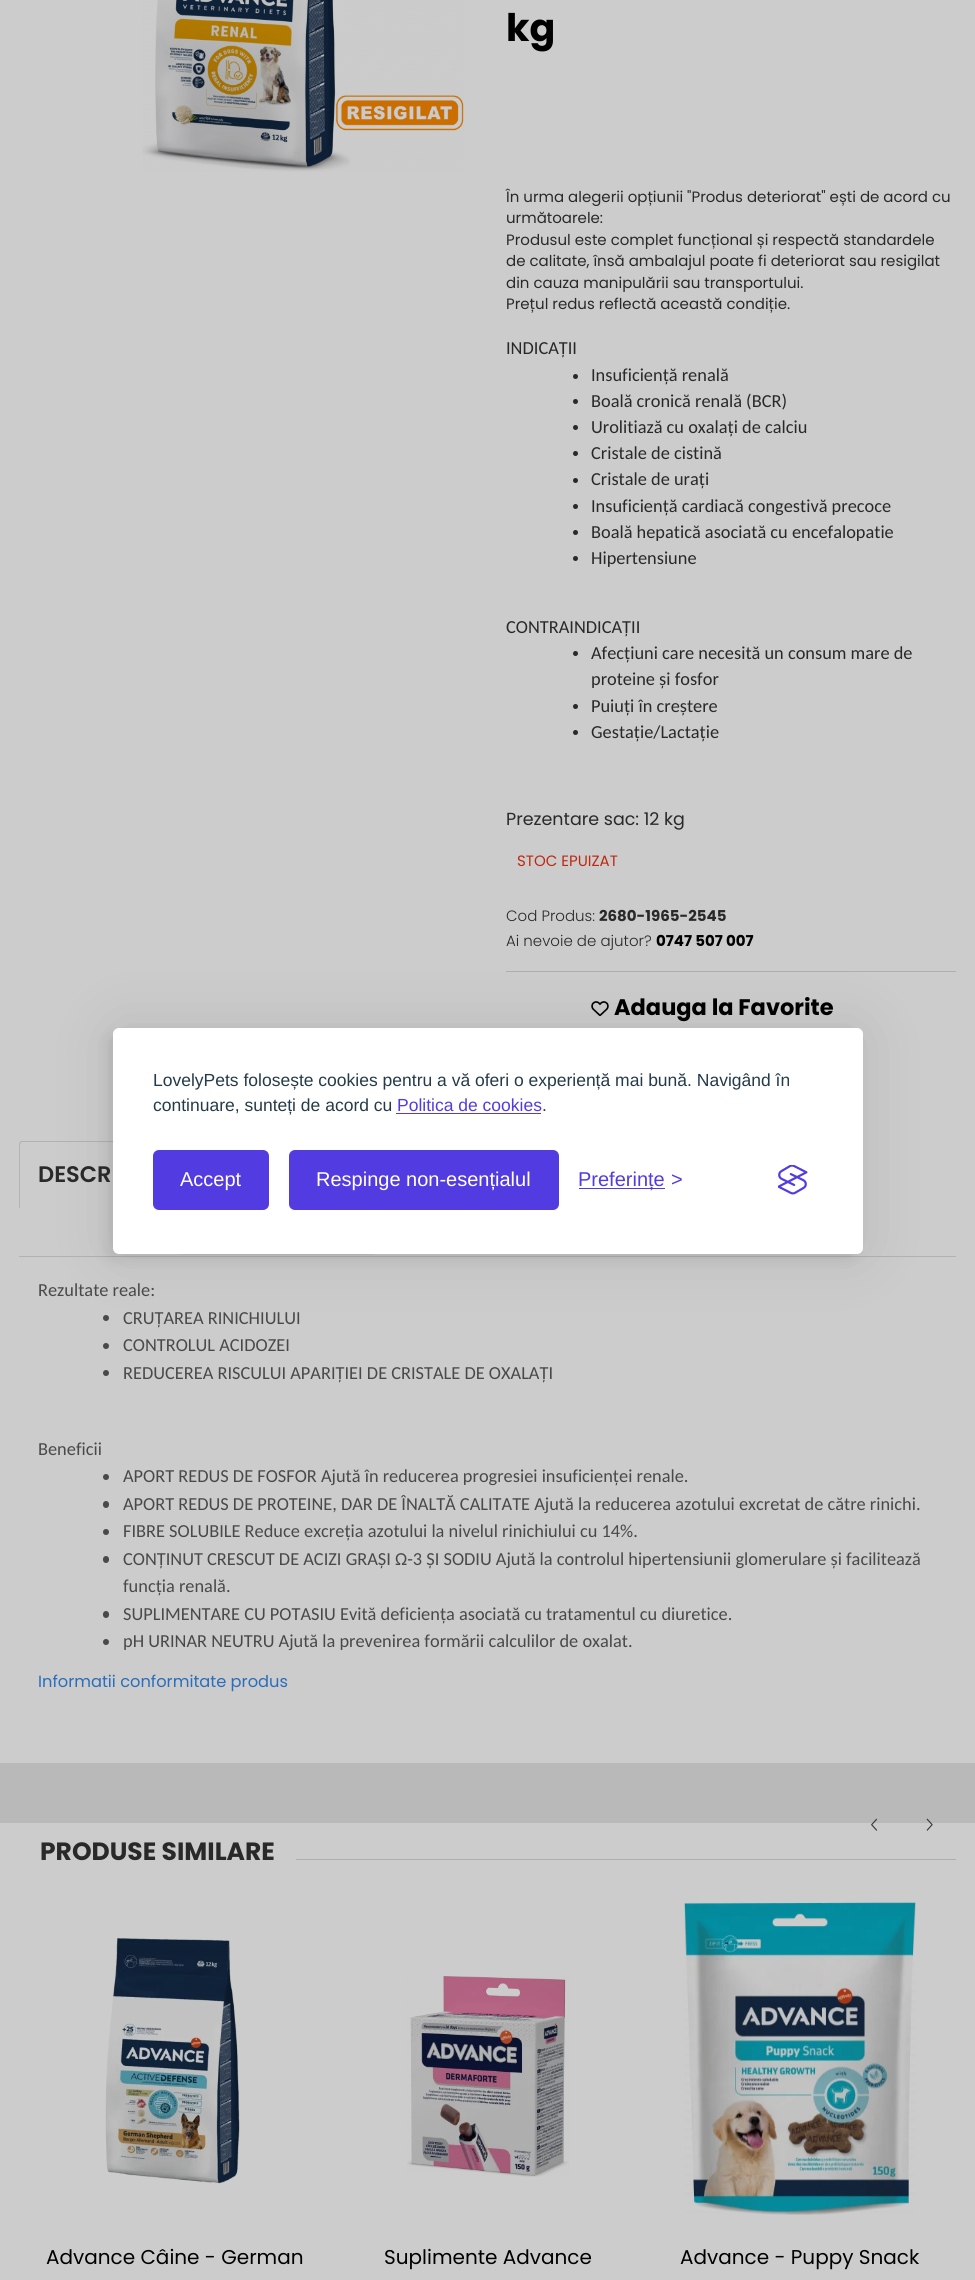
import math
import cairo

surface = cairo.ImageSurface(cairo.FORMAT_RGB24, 975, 2280)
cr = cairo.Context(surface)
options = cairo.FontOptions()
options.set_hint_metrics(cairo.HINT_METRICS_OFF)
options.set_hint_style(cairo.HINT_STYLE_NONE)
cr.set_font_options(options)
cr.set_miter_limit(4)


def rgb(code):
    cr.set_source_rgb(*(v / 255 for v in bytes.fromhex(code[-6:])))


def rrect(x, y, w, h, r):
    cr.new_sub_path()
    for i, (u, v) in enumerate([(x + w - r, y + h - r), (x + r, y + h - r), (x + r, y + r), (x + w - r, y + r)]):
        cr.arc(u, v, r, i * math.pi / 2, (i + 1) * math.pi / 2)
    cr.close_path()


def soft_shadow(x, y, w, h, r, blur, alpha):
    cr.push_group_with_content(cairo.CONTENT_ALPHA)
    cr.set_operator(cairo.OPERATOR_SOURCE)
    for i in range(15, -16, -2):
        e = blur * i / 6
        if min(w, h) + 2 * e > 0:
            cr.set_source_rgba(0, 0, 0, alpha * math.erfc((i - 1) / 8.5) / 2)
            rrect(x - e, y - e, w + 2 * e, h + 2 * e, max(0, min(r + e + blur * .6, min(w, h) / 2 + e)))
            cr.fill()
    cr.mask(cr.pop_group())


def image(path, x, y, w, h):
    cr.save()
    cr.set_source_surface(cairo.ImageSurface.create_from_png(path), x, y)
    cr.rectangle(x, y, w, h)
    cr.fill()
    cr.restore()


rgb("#b9b9b9")
cr.paint()
rgb("#cccccc")
cr.rectangle(0, 0, 975, 1763)
cr.fill()
image("img/1.png", 142, 0, 322, 172)
rgb("#292929")
cr.arc(575.5, 376.5, 2.5, 0, 2 * math.pi)
cr.fill()
cr.arc(575.5, 401.5, 2.5, 0, 2 * math.pi)
cr.fill()
cr.arc(575.5, 427.5, 2.5, 0, 2 * math.pi)
cr.fill()
cr.arc(575.5, 453.5, 2.5, 0, 2 * math.pi)
cr.fill()
cr.arc(575.5, 480.5, 2.5, 0, 2 * math.pi)
cr.fill()
cr.arc(575.5, 506.5, 2.5, 0, 2 * math.pi)
cr.fill()
cr.arc(575.5, 532.5, 2.5, 0, 2 * math.pi)
cr.fill()
cr.arc(575.5, 558.5, 2.5, 0, 2 * math.pi)
cr.fill()
cr.arc(575.5, 653.5, 2.5, 0, 2 * math.pi)
cr.fill()
cr.arc(575.5, 706.5, 2.5, 0, 2 * math.pi)
cr.fill()
cr.arc(575.5, 732.5, 2.5, 0, 2 * math.pi)
cr.fill()
rgb("#afafaf")
cr.rectangle(506, 971, 450, 1)
cr.fill()
image("img/2.png", 591, 1001, 18, 15)
rgb("#b2b2b2")
cr.set_fill_rule(cairo.FILL_RULE_EVEN_ODD)
cr.new_path()
cr.move_to(22, 1141)
cr.line_to(171, 1141)
cr.curve_to(173, 1141, 175, 1143, 175, 1145)
cr.line_to(175, 1208)
cr.line_to(19, 1208)
cr.line_to(19, 1145)
cr.curve_to(19, 1143, 20, 1141, 22, 1141)
cr.close_path()
cr.move_to(22, 1142)
cr.line_to(171, 1142)
cr.curve_to(173, 1142, 174, 1144, 174, 1145)
cr.line_to(174, 1208)
cr.line_to(20, 1208)
cr.line_to(20, 1145)
cr.curve_to(20, 1144, 21, 1142, 22, 1142)
cr.close_path()
cr.fill()
rgb("#c4c4c4")
cr.rectangle(180, 1254, 194, 1)
cr.fill()
rgb("#b2b2b2")
cr.rectangle(19, 1256, 937, 1)
cr.fill()
rgb("#494949")
cr.arc(106, 1318, 3, 0, 2 * math.pi)
cr.fill()
cr.arc(106, 1346, 3, 0, 2 * math.pi)
cr.fill()
cr.arc(106, 1373, 3, 0, 2 * math.pi)
cr.fill()
cr.arc(106, 1477, 3, 0, 2 * math.pi)
cr.fill()
rrect(103, 1501, 6, 7, 3)
cr.fill()
cr.arc(106, 1532, 3, 0, 2 * math.pi)
cr.fill()
rrect(103, 1556, 6, 7, 3)
cr.fill()
rrect(103, 1611, 6, 7, 3)
cr.fill()
cr.arc(106, 1642, 3, 0, 2 * math.pi)
cr.fill()
rgb("#cccccc")
cr.rectangle(0, 1823, 975, 457)
cr.fill()
rgb("#aeaeae")
cr.rectangle(296, 1859, 660, 1)
cr.fill()
image("img/3.png", 871, 1818, 7, 13)
image("img/4.png", 926, 1818, 7, 13)
image("img/5.png", 105, 1938, 135, 246)
image("img/6.png", 407, 1976, 162, 201)
image("img/7.png", 684, 1902, 232, 313)
rgb("#000000")
soft_shadow(113, 1028, 750, 226, 6, 31, 0.1)
soft_shadow(106, 1034, 750, 226, 6, 6, 0.07)
rgb("#ffffff")
rrect(113, 1028, 750, 226, 6)
cr.fill()
rgb("#533be2")
cr.rectangle(396, 1113, 145, 1)
cr.fill()
rrect(154.5, 1151.5, 113, 57, 4.5)
cr.fill_preserve()
cr.set_line_width(3)
cr.stroke()
rrect(290.5, 1151.5, 267, 57, 4.5)
cr.fill_preserve()
cr.stroke()
cr.rectangle(579, 1188, 86, 1)
cr.fill()
image("img/8.png", 778, 1165, 30, 30)
cr.select_font_face("Poppins", cairo.FONT_SLANT_NORMAL, cairo.FONT_WEIGHT_BOLD)
cr.set_font_size(38)
rgb("#000000")
cr.move_to(506, 41)
cr.show_text("kg")
cr.select_font_face("Poppins")
cr.set_font_size(15)
rgb("#292929")
for x, y, s in [
    (506, 202, "În urma alegerii opțiunii \"Produs deteriorat\" ești de acord cu"),
    (506, 223, "următoarele:"),
    (506, 245, "Produsul este complet funcțional și respectă standardele"),
    (506, 266, "de calitate, însă ambalajul poate fi deteriorat sau resigilat"),
    (506, 288, "din cauza manipulării sau transportului."),
    (506, 309, "Prețul redus reflectă această condiție."),
]:
    cr.move_to(x, y)
    cr.show_text(s)
cr.select_font_face("Carlito")
cr.set_font_size(18.35)
for x, y, s in [
    (506, 354, "INDICAȚII"),
    (591, 381, "Insuficiență renală"),
    (591, 407, "Boală cronică renală (BCR)"),
    (591, 433, "Urolitiază cu oxalați de calciu"),
    (591, 459, "Cristale de cistină"),
    (591, 485, "Cristale de urați"),
    (591, 512, "Insuficiență cardiacă congestivă precoce"),
    (591, 538, "Boală hepatică asociată cu encefalopatie"),
    (591, 564, "Hipertensiune"),
    (506, 633, "CONTRAINDICAȚII"),
    (591, 659, "Afecțiuni care necesită un consum mare de"),
    (591, 685, "proteine și fosfor"),
    (591, 712, "Puiuți în creștere"),
    (591, 738, "Gestație/Lactație"),
]:
    cr.move_to(x, y)
    cr.show_text(s)
cr.select_font_face("Poppins")
cr.set_font_size(17.5)
cr.move_to(506, 825)
cr.show_text("Prezentare sac: 12 kg")
cr.set_font_size(15)
rgb("#be2810")
cr.move_to(517, 866)
cr.show_text("STOC EPUIZAT")
cr.select_font_face("Poppins Light")
rgb("#292929")
cr.move_to(506, 921)
cr.show_text("Cod Produs:")
cr.select_font_face("Poppins", cairo.FONT_SLANT_NORMAL, cairo.FONT_WEIGHT_BOLD)
cr.move_to(599, 921)
cr.show_text("2680-1965-2545")
cr.select_font_face("Poppins Light")
cr.move_to(506, 946)
cr.show_text("Ai nevoie de ajutor?")
cr.select_font_face("Poppins", cairo.FONT_SLANT_NORMAL, cairo.FONT_WEIGHT_BOLD)
rgb("#000000")
cr.move_to(656, 946)
cr.show_text("0747 507 007")
cr.set_font_size(22.5)
cr.move_to(614, 1015)
cr.show_text("Adauga la Favorite")
cr.select_font_face("Poppins SemiBold")
rgb("#292929")
cr.move_to(38, 1182)
cr.show_text("DESCR")
cr.select_font_face("Carlito")
cr.set_font_size(18.35)
rgb("#494949")
for x, y, s in [
    (38, 1296, "Rezultate reale:"),
    (123, 1324, "CRUȚAREA RINICHIULUI"),
    (123, 1351, "CONTROLUL ACIDOZEI"),
    (123, 1379, "REDUCEREA RISCULUI APARIȚIEI DE CRISTALE DE OXALAȚI"),
    (38, 1455, "Beneficii"),
    (123, 1482, "APORT REDUS DE FOSFOR Ajută în reducerea progresiei insuficienței renale."),
    (123, 1510, "APORT REDUS DE PROTEINE, DAR DE ÎNALTĂ CALITATE Ajută la reducerea azotului excretat de către rinichi."),
    (123, 1537, "FIBRE SOLUBILE Reduce excreția azotului la nivelul rinichiului cu 14%."),
    (123, 1565, "CONȚINUT CRESCUT DE ACIZI GRAȘI Ω-3 ȘI SODIU Ajută la controlul hipertensiunii glomerulare și facilitează"),
    (123, 1592, "funcția renală."),
    (123, 1620, "SUPLIMENTARE CU POTASIU Evită deficiența asociată cu tratamentul cu diuretice."),
    (123, 1647, "pH URINAR NEUTRU Ajută la prevenirea formării calculilor de oxalat."),
]:
    cr.move_to(x, y)
    cr.show_text(s)
cr.select_font_face("Poppins")
cr.set_font_size(16.25)
rgb("#296dbc")
cr.move_to(38, 1687)
cr.show_text("Informatii conformitate produs")
cr.select_font_face("Poppins", cairo.FONT_SLANT_NORMAL, cairo.FONT_WEIGHT_BOLD)
cr.set_font_size(25)
rgb("#292929")
cr.move_to(40, 1860)
cr.show_text("PRODUSE SIMILARE")
cr.select_font_face("Poppins")
cr.set_font_size(20)
rgb("#000000")
for x, y, s in [
    (46, 2264, "Advance Câine - German"),
    (384, 2264, "Suplimente Advance"),
    (680, 2264, "Advance - Puppy Snack"),
]:
    cr.move_to(x, y)
    cr.show_text(s)
cr.select_font_face("Liberation Sans")
cr.set_font_size(17.5)
rgb("#253b48")
cr.move_to(153, 1086)
cr.show_text("LovelyPets folosește cookies pentru a vă oferi o experiență mai bună. Navigând în")
cr.move_to(153, 1111)
cr.show_text("continuare, sunteți de acord cu")
rgb("#533be2")
cr.move_to(397, 1111)
cr.show_text("Politica de cookies")
rgb("#253b48")
cr.move_to(542, 1111)
cr.show_text(".")
cr.set_font_size(20)
rgb("#ffffff")
cr.move_to(180, 1186)
cr.show_text("Accept")
cr.move_to(316, 1186)
cr.show_text("Respinge non-esențialul")
rgb("#533be2")
cr.move_to(578, 1186)
cr.show_text("Preferințe")
cr.move_to(671, 1186)
cr.show_text(">")
surface.write_to_png("page.png")
